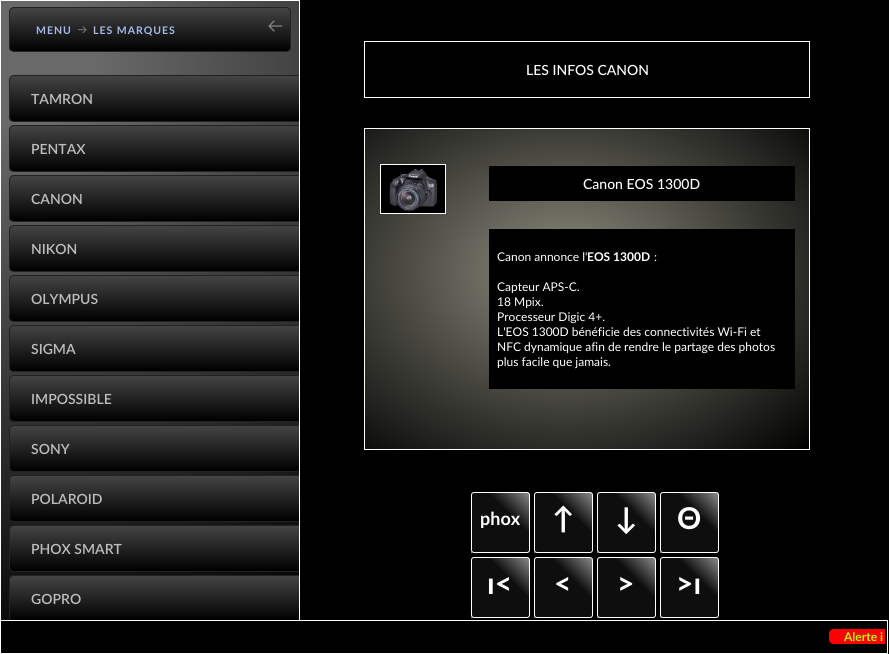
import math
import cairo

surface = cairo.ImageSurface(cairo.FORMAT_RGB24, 889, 654)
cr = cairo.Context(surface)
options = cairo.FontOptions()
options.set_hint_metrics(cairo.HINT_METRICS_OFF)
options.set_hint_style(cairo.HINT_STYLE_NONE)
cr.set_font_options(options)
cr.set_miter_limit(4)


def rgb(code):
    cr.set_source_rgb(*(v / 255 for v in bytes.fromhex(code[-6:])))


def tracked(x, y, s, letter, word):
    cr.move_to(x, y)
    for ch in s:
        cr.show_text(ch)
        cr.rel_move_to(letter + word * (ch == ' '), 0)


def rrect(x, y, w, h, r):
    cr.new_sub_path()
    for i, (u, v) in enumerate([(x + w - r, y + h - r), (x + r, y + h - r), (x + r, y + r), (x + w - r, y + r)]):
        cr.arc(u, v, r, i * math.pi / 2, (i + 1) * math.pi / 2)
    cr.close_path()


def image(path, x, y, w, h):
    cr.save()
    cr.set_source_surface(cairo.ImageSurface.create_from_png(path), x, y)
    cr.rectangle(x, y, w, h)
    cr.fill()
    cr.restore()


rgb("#000000")
cr.paint()
gradient = cairo.RadialGradient(34, 63, 0, 34, 63, 617)
gradient.add_color_stop_rgba(0.1, 0.412, 0.412, 0.412, 1)
gradient.add_color_stop_rgba(1, 0, 0, 0, 1)
cr.set_source(gradient)
cr.rectangle(1, 1, 298, 619)
cr.fill()
cr.rectangle(0.5, 0.5, 299, 620)
rgb("#ffffff")
cr.set_line_width(1)
cr.stroke()
cr.save()
rrect(9, 7, 282, 45, 5)
cr.clip()
gradient = cairo.LinearGradient(150, 8, 150, 51)
gradient.add_color_stop_rgba(0, 0.267, 0.267, 0.267, 1)
gradient.add_color_stop_rgba(1, 0, 0, 0, 1)
cr.set_source(gradient)
cr.rectangle(9, 8, 282, 43)
cr.fill()
cr.restore()
rrect(9.5, 7.5, 281, 44, 4.5)
rgb("#222222")
cr.stroke()
image("img/1.png", 77, 26, 10, 7)
image("img/2.png", 268, 20, 15, 12)
cr.save()
rrect(9, 75, 298, 47, 5)
cr.clip()
gradient = cairo.LinearGradient(158, 76, 158, 121)
gradient.add_color_stop_rgba(0, 0.267, 0.267, 0.267, 1)
gradient.add_color_stop_rgba(1, 0, 0, 0, 1)
cr.set_source(gradient)
cr.rectangle(9, 76, 290, 45)
cr.fill()
cr.restore()
cr.save()
cr.rectangle(1, 72, 298, 548)
cr.clip()
rrect(9.5, 75.5, 297, 46, 4.5)
cr.stroke()
cr.restore()
cr.save()
rrect(9, 125, 298, 47, 5)
cr.clip()
gradient = cairo.LinearGradient(158, 126, 158, 171)
gradient.add_color_stop_rgba(0, 0.267, 0.267, 0.267, 1)
gradient.add_color_stop_rgba(1, 0, 0, 0, 1)
cr.set_source(gradient)
cr.rectangle(9, 126, 290, 45)
cr.fill()
cr.restore()
cr.save()
cr.rectangle(1, 72, 298, 548)
cr.clip()
rrect(9.5, 125.5, 297, 46, 4.5)
cr.stroke()
cr.restore()
cr.save()
rrect(9, 175, 298, 47, 5)
cr.clip()
gradient = cairo.LinearGradient(158, 176, 158, 221)
gradient.add_color_stop_rgba(0, 0.267, 0.267, 0.267, 1)
gradient.add_color_stop_rgba(1, 0, 0, 0, 1)
cr.set_source(gradient)
cr.rectangle(9, 176, 290, 45)
cr.fill()
cr.restore()
cr.save()
cr.rectangle(1, 72, 298, 548)
cr.clip()
rrect(9.5, 175.5, 297, 46, 4.5)
cr.stroke()
cr.restore()
cr.save()
rrect(9, 225, 298, 47, 5)
cr.clip()
gradient = cairo.LinearGradient(158, 226, 158, 271)
gradient.add_color_stop_rgba(0, 0.267, 0.267, 0.267, 1)
gradient.add_color_stop_rgba(1, 0, 0, 0, 1)
cr.set_source(gradient)
cr.rectangle(9, 226, 290, 45)
cr.fill()
cr.restore()
cr.save()
cr.rectangle(1, 72, 298, 548)
cr.clip()
rrect(9.5, 225.5, 297, 46, 4.5)
cr.stroke()
cr.restore()
cr.save()
rrect(9, 275, 298, 47, 5)
cr.clip()
gradient = cairo.LinearGradient(158, 276, 158, 321)
gradient.add_color_stop_rgba(0, 0.267, 0.267, 0.267, 1)
gradient.add_color_stop_rgba(1, 0, 0, 0, 1)
cr.set_source(gradient)
cr.rectangle(9, 276, 290, 45)
cr.fill()
cr.restore()
cr.save()
cr.rectangle(1, 72, 298, 548)
cr.clip()
rrect(9.5, 275.5, 297, 46, 4.5)
cr.stroke()
cr.restore()
cr.save()
rrect(9, 325, 298, 47, 5)
cr.clip()
gradient = cairo.LinearGradient(158, 326, 158, 371)
gradient.add_color_stop_rgba(0, 0.267, 0.267, 0.267, 1)
gradient.add_color_stop_rgba(1, 0, 0, 0, 1)
cr.set_source(gradient)
cr.rectangle(9, 326, 290, 45)
cr.fill()
cr.restore()
cr.save()
cr.rectangle(1, 72, 298, 548)
cr.clip()
rrect(9.5, 325.5, 297, 46, 4.5)
cr.stroke()
cr.restore()
cr.save()
rrect(9, 375, 298, 47, 5)
cr.clip()
gradient = cairo.LinearGradient(158, 376, 158, 421)
gradient.add_color_stop_rgba(0, 0.267, 0.267, 0.267, 1)
gradient.add_color_stop_rgba(1, 0, 0, 0, 1)
cr.set_source(gradient)
cr.rectangle(9, 376, 290, 45)
cr.fill()
cr.restore()
cr.save()
cr.rectangle(1, 72, 298, 548)
cr.clip()
rrect(9.5, 375.5, 297, 46, 4.5)
cr.stroke()
cr.restore()
cr.save()
rrect(9, 425, 298, 47, 5)
cr.clip()
gradient = cairo.LinearGradient(158, 426, 158, 471)
gradient.add_color_stop_rgba(0, 0.267, 0.267, 0.267, 1)
gradient.add_color_stop_rgba(1, 0, 0, 0, 1)
cr.set_source(gradient)
cr.rectangle(9, 426, 290, 45)
cr.fill()
cr.restore()
cr.save()
cr.rectangle(1, 72, 298, 548)
cr.clip()
rrect(9.5, 425.5, 297, 46, 4.5)
cr.stroke()
cr.restore()
cr.save()
rrect(9, 475, 298, 47, 5)
cr.clip()
gradient = cairo.LinearGradient(158, 476, 158, 521)
gradient.add_color_stop_rgba(0, 0.267, 0.267, 0.267, 1)
gradient.add_color_stop_rgba(1, 0, 0, 0, 1)
cr.set_source(gradient)
cr.rectangle(9, 476, 290, 45)
cr.fill()
cr.restore()
cr.save()
cr.rectangle(1, 72, 298, 548)
cr.clip()
rrect(9.5, 475.5, 297, 46, 4.5)
cr.stroke()
cr.restore()
cr.save()
rrect(9, 525, 298, 47, 5)
cr.clip()
gradient = cairo.LinearGradient(158, 526, 158, 571)
gradient.add_color_stop_rgba(0, 0.267, 0.267, 0.267, 1)
gradient.add_color_stop_rgba(1, 0, 0, 0, 1)
cr.set_source(gradient)
cr.rectangle(9, 526, 290, 45)
cr.fill()
cr.restore()
cr.save()
cr.rectangle(1, 72, 298, 548)
cr.clip()
rrect(9.5, 525.5, 297, 46, 4.5)
cr.stroke()
cr.restore()
cr.save()
rrect(9, 575, 298, 47, 5)
cr.clip()
gradient = cairo.LinearGradient(158, 576, 158, 621)
gradient.add_color_stop_rgba(0, 0.267, 0.267, 0.267, 1)
gradient.add_color_stop_rgba(1, 0, 0, 0, 1)
cr.set_source(gradient)
cr.rectangle(9, 576, 290, 44)
cr.fill()
cr.restore()
cr.save()
cr.rectangle(1, 72, 298, 548)
cr.clip()
rrect(9.5, 575.5, 297, 46, 4.5)
cr.stroke()
cr.restore()
cr.rectangle(364.5, 41.5, 445, 56)
rgb("#ffffff")
cr.stroke()
gradient = cairo.RadialGradient(0, 0, 0, 0, 0, 1)
gradient.set_matrix(cairo.Matrix(1 / 345, 0, 0, 1 / 249, -1 * 565 / 345, -1 * 273 / 249))
gradient.add_color_stop_rgba(0.01, 0.549, 0.549, 0.494, 1)
gradient.add_color_stop_rgba(1, 0, 0, 0, 1)
cr.set_source(gradient)
cr.rectangle(365, 129, 444, 320)
cr.fill()
cr.rectangle(364.5, 128.5, 445, 321)
rgb("#ffffff")
cr.stroke()
rgb("#000000")
cr.rectangle(380.5, 164.5, 65, 49)
cr.fill_preserve()
rgb("#ffffff")
cr.stroke()
image("img/3.png", 389, 168, 49, 43)
rgb("#000000")
cr.rectangle(489, 166, 306, 35)
cr.fill()
cr.rectangle(489, 229, 306, 160)
cr.fill()
gradient = cairo.LinearGradient(472, 552, 530, 494)
gradient.add_color_stop_rgba(0.65, 0.055, 0.055, 0.055, 1)
gradient.add_color_stop_rgba(0.97, 0.49, 0.494, 0.49, 1)
cr.set_source(gradient)
cr.rectangle(472, 493, 57, 59)
cr.fill()
gradient = cairo.LinearGradient(415, 611, 473, 553)
gradient.add_color_stop_rgba(0.65, 0.055, 0.055, 0.055, 1)
gradient.add_color_stop_rgba(0.97, 0.49, 0.494, 0.49, 1)
cr.set_source(gradient)
cr.rectangle(471, 552, 1, 1)
cr.fill()
rrect(471.5, 492.5, 58, 60, 2.5)
rgb("#ffffff")
cr.stroke()
gradient = cairo.LinearGradient(535, 552, 593, 494)
gradient.add_color_stop_rgba(0.65, 0.055, 0.055, 0.055, 1)
gradient.add_color_stop_rgba(0.97, 0.49, 0.494, 0.49, 1)
cr.set_source(gradient)
cr.rectangle(535, 493, 57, 59)
cr.fill()
gradient = cairo.LinearGradient(478, 611, 536, 553)
gradient.add_color_stop_rgba(0.65, 0.055, 0.055, 0.055, 1)
gradient.add_color_stop_rgba(0.97, 0.49, 0.494, 0.49, 1)
cr.set_source(gradient)
cr.rectangle(534, 552, 1, 1)
cr.fill()
rrect(534.5, 492.5, 58, 60, 2.5)
rgb("#ffffff")
cr.stroke()
gradient = cairo.LinearGradient(598, 552, 656, 494)
gradient.add_color_stop_rgba(0.65, 0.055, 0.055, 0.055, 1)
gradient.add_color_stop_rgba(0.97, 0.49, 0.494, 0.49, 1)
cr.set_source(gradient)
cr.rectangle(598, 493, 57, 59)
cr.fill()
gradient = cairo.LinearGradient(541, 611, 599, 553)
gradient.add_color_stop_rgba(0.65, 0.055, 0.055, 0.055, 1)
gradient.add_color_stop_rgba(0.97, 0.49, 0.494, 0.49, 1)
cr.set_source(gradient)
cr.rectangle(597, 552, 1, 1)
cr.fill()
rrect(597.5, 492.5, 58, 60, 2.5)
rgb("#ffffff")
cr.stroke()
gradient = cairo.LinearGradient(661, 552, 719, 494)
gradient.add_color_stop_rgba(0.65, 0.055, 0.055, 0.055, 1)
gradient.add_color_stop_rgba(0.97, 0.49, 0.494, 0.49, 1)
cr.set_source(gradient)
cr.rectangle(661, 493, 57, 59)
cr.fill()
gradient = cairo.LinearGradient(604, 611, 662, 553)
gradient.add_color_stop_rgba(0.65, 0.055, 0.055, 0.055, 1)
gradient.add_color_stop_rgba(0.97, 0.49, 0.494, 0.49, 1)
cr.set_source(gradient)
cr.rectangle(660, 552, 1, 1)
cr.fill()
rrect(660.5, 492.5, 58, 60, 2.5)
rgb("#ffffff")
cr.stroke()
gradient = cairo.LinearGradient(472, 617, 530, 559)
gradient.add_color_stop_rgba(0.65, 0.055, 0.055, 0.055, 1)
gradient.add_color_stop_rgba(0.97, 0.49, 0.494, 0.49, 1)
cr.set_source(gradient)
cr.rectangle(472, 558, 57, 59)
cr.fill()
gradient = cairo.LinearGradient(415, 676, 473, 618)
gradient.add_color_stop_rgba(0.65, 0.055, 0.055, 0.055, 1)
gradient.add_color_stop_rgba(0.97, 0.49, 0.494, 0.49, 1)
cr.set_source(gradient)
cr.rectangle(471, 617, 1, 1)
cr.fill()
rrect(471.5, 557.5, 58, 60, 2.5)
rgb("#ffffff")
cr.stroke()
gradient = cairo.LinearGradient(535, 617, 593, 559)
gradient.add_color_stop_rgba(0.65, 0.055, 0.055, 0.055, 1)
gradient.add_color_stop_rgba(0.97, 0.49, 0.494, 0.49, 1)
cr.set_source(gradient)
cr.rectangle(535, 558, 57, 59)
cr.fill()
gradient = cairo.LinearGradient(478, 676, 536, 618)
gradient.add_color_stop_rgba(0.65, 0.055, 0.055, 0.055, 1)
gradient.add_color_stop_rgba(0.97, 0.49, 0.494, 0.49, 1)
cr.set_source(gradient)
cr.rectangle(534, 617, 1, 1)
cr.fill()
rrect(534.5, 557.5, 58, 60, 2.5)
rgb("#ffffff")
cr.stroke()
gradient = cairo.LinearGradient(598, 617, 656, 559)
gradient.add_color_stop_rgba(0.65, 0.055, 0.055, 0.055, 1)
gradient.add_color_stop_rgba(0.97, 0.49, 0.494, 0.49, 1)
cr.set_source(gradient)
cr.rectangle(598, 558, 57, 59)
cr.fill()
gradient = cairo.LinearGradient(541, 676, 599, 618)
gradient.add_color_stop_rgba(0.65, 0.055, 0.055, 0.055, 1)
gradient.add_color_stop_rgba(0.97, 0.49, 0.494, 0.49, 1)
cr.set_source(gradient)
cr.rectangle(597, 617, 1, 1)
cr.fill()
rrect(597.5, 557.5, 58, 60, 2.5)
rgb("#ffffff")
cr.stroke()
gradient = cairo.LinearGradient(661, 617, 719, 559)
gradient.add_color_stop_rgba(0.65, 0.055, 0.055, 0.055, 1)
gradient.add_color_stop_rgba(0.97, 0.49, 0.494, 0.49, 1)
cr.set_source(gradient)
cr.rectangle(661, 558, 57, 59)
cr.fill()
gradient = cairo.LinearGradient(604, 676, 662, 618)
gradient.add_color_stop_rgba(0.65, 0.055, 0.055, 0.055, 1)
gradient.add_color_stop_rgba(0.97, 0.49, 0.494, 0.49, 1)
cr.set_source(gradient)
cr.rectangle(660, 617, 1, 1)
cr.fill()
rrect(660.5, 557.5, 58, 60, 2.5)
rgb("#ffffff")
cr.stroke()
rgb("#000000")
cr.rectangle(1, 620, 299, 1)
cr.fill()
cr.rectangle(0.5, 620.5, 887, 33)
rgb("#ffffff")
cr.stroke()
rgb("#ff0000")
cr.new_path()
cr.move_to(834, 629)
cr.line_to(885, 629)
cr.line_to(885, 644)
cr.line_to(834, 644)
cr.curve_to(831, 644, 829, 642, 829, 639)
cr.line_to(829, 634)
cr.curve_to(829, 631, 831, 629, 834, 629)
cr.close_path()
cr.fill()
cr.select_font_face("Lato", cairo.FONT_SLANT_NORMAL, cairo.FONT_WEIGHT_BOLD)
cr.set_font_size(10.5)
rgb("#a4baed")
tracked(36, 34, "MENU", 1, 0)
tracked(93, 34, "LES MARQUES", 1, 0)
cr.select_font_face("Lato SemiBold")
cr.set_font_size(14)
rgb("#bdbdbd")
for x, y, s in [
    (31, 104, "TAMRON"),
    (31, 154, "PENTAX"),
    (31, 204, "CANON"),
    (31, 254, "NIKON"),
    (31, 304, "OLYMPUS"),
    (31, 354, "SIGMA"),
    (31, 404, "IMPOSSIBLE"),
    (31, 454, "SONY"),
    (31, 504, "POLAROID"),
    (31, 554, "PHOX SMART"),
    (31, 604, "GOPRO"),
]:
    cr.move_to(x, y)
    cr.show_text(s)
cr.select_font_face("Lato Medium")
rgb("#ffffff")
cr.move_to(526, 75)
cr.show_text("LES INFOS CANON")
cr.move_to(583, 189)
cr.show_text("Canon EOS 1300D")
cr.select_font_face("Lato")
cr.set_font_size(12)
cr.move_to(497, 261)
cr.show_text("Canon annonce l'")
cr.select_font_face("Lato", cairo.FONT_SLANT_NORMAL, cairo.FONT_WEIGHT_BOLD)
cr.move_to(587, 261)
cr.show_text("EOS 1300D")
cr.select_font_face("Lato")
for x, y, s in [
    (654, 261, ":"),
    (497, 291, "Capteur APS-C."),
    (497, 306, "18 Mpix."),
    (497, 321, "Processeur Digic 4+."),
    (497, 336, "L'EOS 1300D bénéficie des connectivités Wi-Fi et"),
    (497, 351, "NFC dynamique afin de rendre le partage des photos"),
    (497, 366, "plus facile que jamais."),
]:
    cr.move_to(x, y)
    cr.show_text(s)
cr.select_font_face("Lato", cairo.FONT_SLANT_NORMAL, cairo.FONT_WEIGHT_BOLD)
cr.set_font_size(18)
cr.move_to(480, 525)
cr.show_text("phox")
cr.set_font_size(30)
for x, y, s in [
    (552, 529, "↑"),
    (615, 529, "↓"),
    (677, 529, "Θ"),
    (487, 594, "ı<"),
    (554, 594, "<"),
    (617, 594, ">"),
    (676, 594, ">ı"),
]:
    cr.move_to(x, y)
    cr.show_text(s)
cr.set_font_size(12)
rgb("#aaff00")
cr.move_to(844, 641)
cr.show_text("Alerte i")
surface.write_to_png("page.png")
